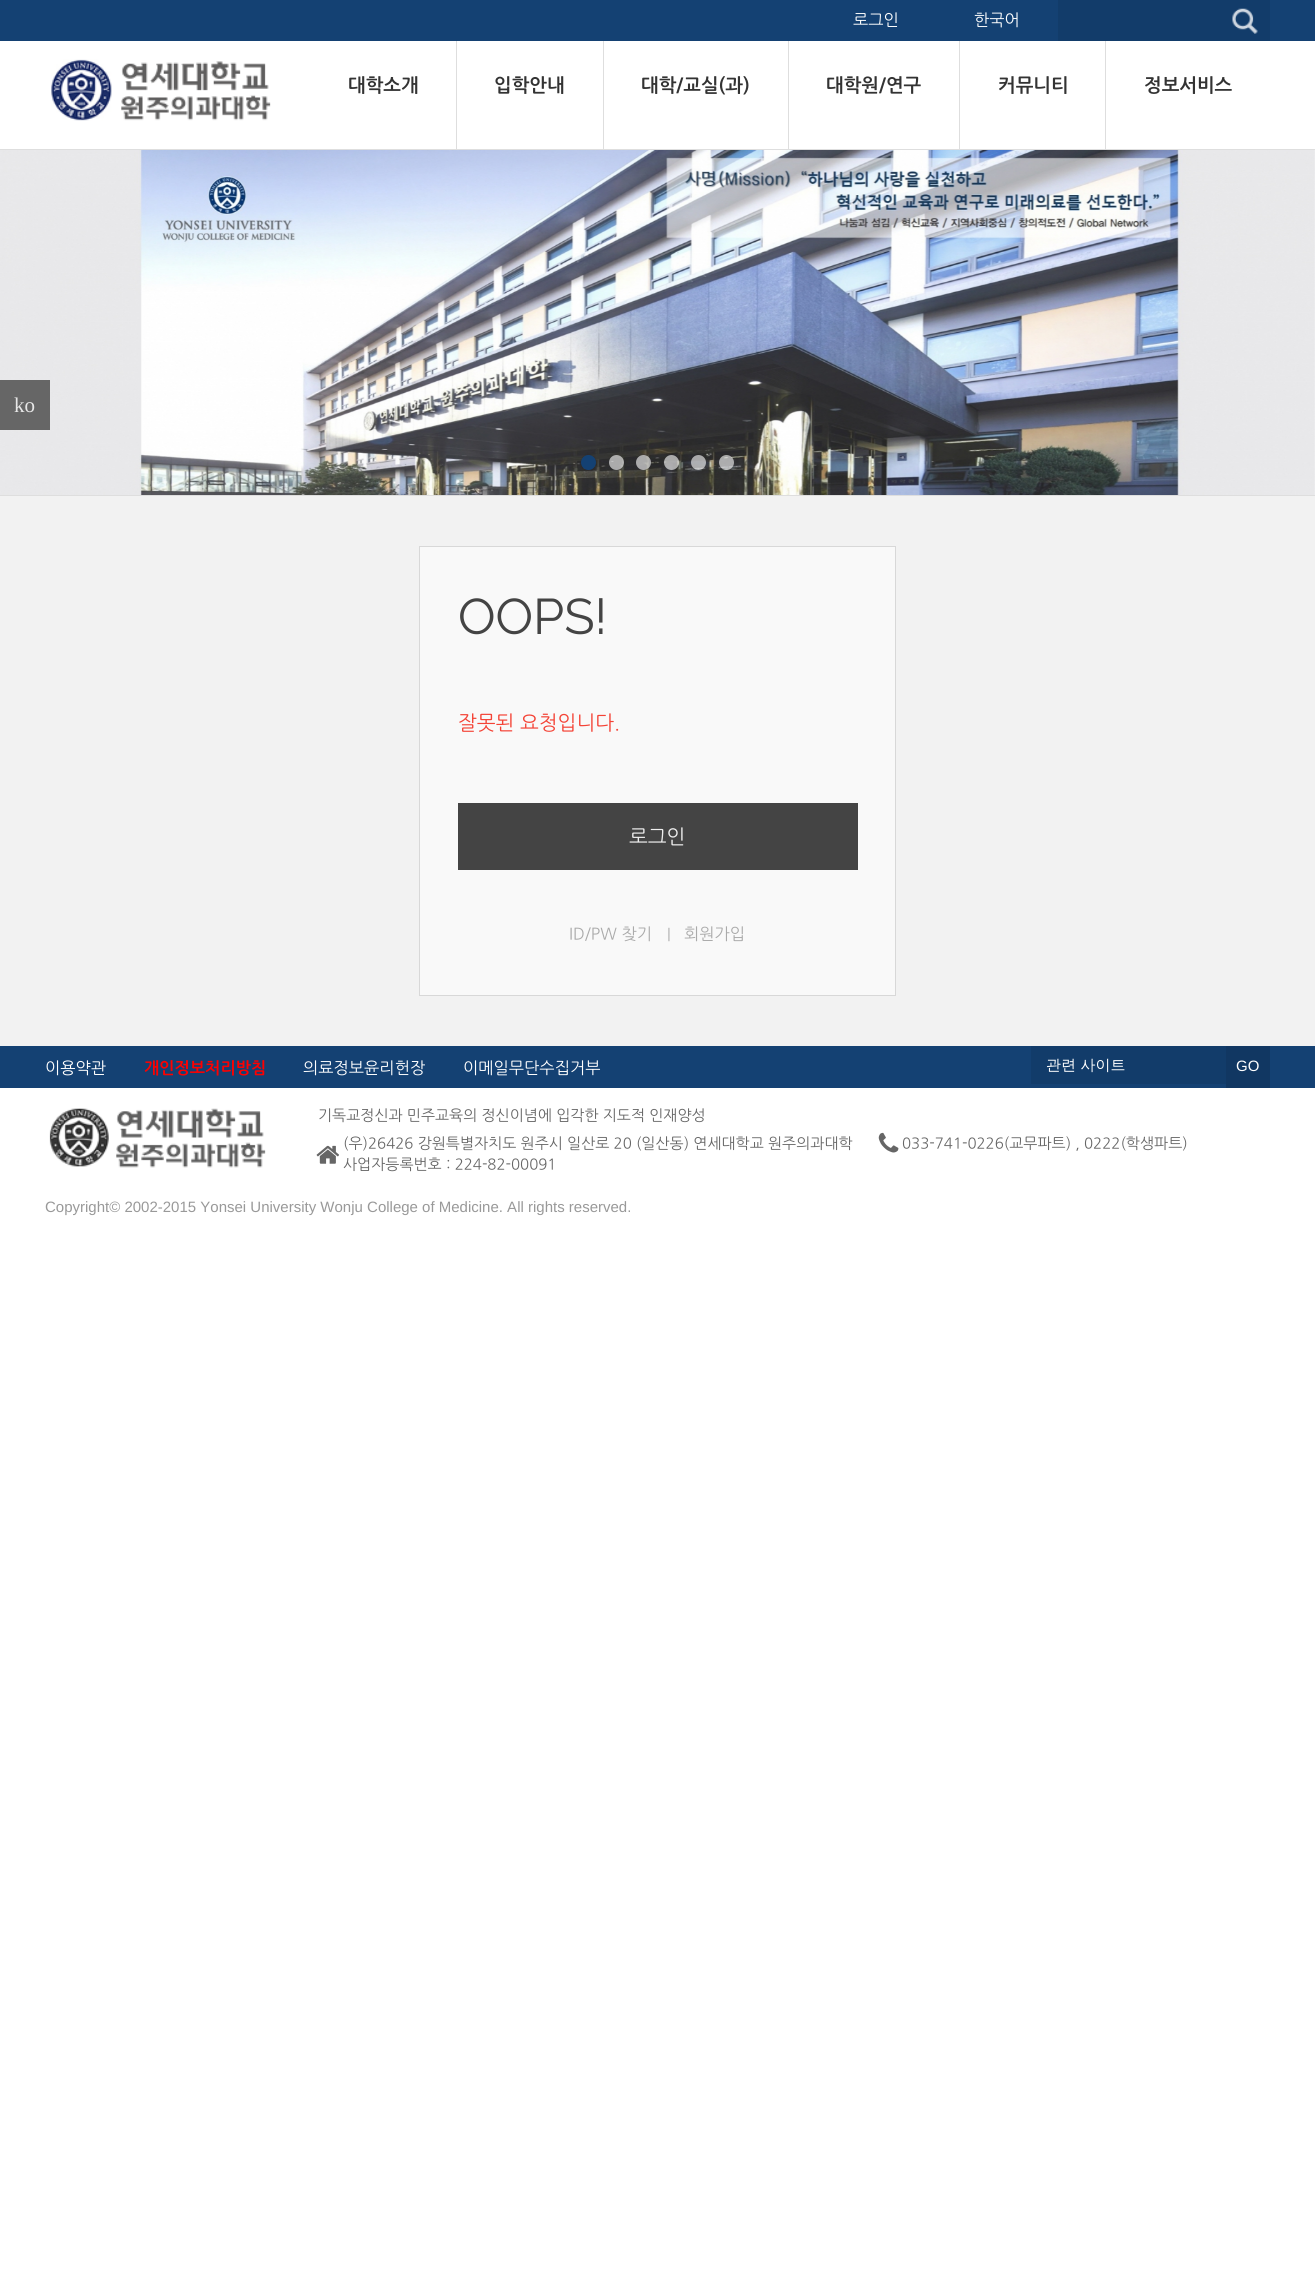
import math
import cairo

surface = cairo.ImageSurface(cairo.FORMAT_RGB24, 1315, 2283)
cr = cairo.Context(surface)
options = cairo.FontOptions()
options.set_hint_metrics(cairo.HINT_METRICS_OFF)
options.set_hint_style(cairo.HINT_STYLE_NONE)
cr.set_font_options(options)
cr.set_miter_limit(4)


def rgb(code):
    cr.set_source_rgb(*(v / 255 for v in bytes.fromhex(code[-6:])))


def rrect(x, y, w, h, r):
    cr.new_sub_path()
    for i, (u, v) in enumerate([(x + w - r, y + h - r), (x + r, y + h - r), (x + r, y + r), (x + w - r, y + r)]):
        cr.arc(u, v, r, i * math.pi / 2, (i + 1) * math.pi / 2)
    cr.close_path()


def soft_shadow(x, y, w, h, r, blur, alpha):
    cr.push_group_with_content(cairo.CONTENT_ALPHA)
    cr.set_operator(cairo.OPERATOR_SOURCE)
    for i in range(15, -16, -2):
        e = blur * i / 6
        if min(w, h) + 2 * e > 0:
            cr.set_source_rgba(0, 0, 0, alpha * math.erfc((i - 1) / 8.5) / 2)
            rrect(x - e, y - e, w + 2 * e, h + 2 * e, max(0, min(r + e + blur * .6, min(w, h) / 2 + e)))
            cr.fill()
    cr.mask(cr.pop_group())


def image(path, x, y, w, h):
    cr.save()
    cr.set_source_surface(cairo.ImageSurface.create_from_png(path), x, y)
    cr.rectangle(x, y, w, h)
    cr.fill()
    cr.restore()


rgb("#ffffff")
cr.paint()
image("img/3.png", 0, 150, 1315, 345)
for x, y, w, h, color in [
    (0, 380, 50, 50, "#666666"),
    (0, 0, 1315, 41, "#144173"),
    (1058, 0, 212, 41, "#123c6a"),
]:
    rgb(color)
    cr.rectangle(x, y, w, h)
    cr.fill()
image("img/1.png", 1232, 8, 26, 26)
rgb("#dedede")
cr.rectangle(0, 149, 1315, 1)
cr.fill()
image("img/2.png", 51, 59, 220, 62)
for x, y, w, h, color in [
    (456, 41, 1, 108, "#dedede"),
    (603, 41, 1, 108, "#dedede"),
    (788, 41, 1, 108, "#dedede"),
    (959, 41, 1, 108, "#dedede"),
    (1105, 41, 1, 108, "#dedede"),
    (0, 495, 1315, 1, "#dedede"),
]:
    rgb(color)
    cr.rectangle(x, y, w, h)
    cr.fill()
rgb("#000000")
soft_shadow(581, 455, 15, 15, 7.5, 1, 0.2)
rgb("#144173")
cr.arc(588.5, 462.5, 7.5, 0, 2 * math.pi)
cr.fill()
cr.set_source_rgba(1, 1, 1, 0.6)
cr.arc(616.5, 462.5, 7.5, 0, 2 * math.pi)
cr.fill()
cr.arc(643.5, 462.5, 7.5, 0, 2 * math.pi)
cr.fill()
cr.arc(671.5, 462.5, 7.5, 0, 2 * math.pi)
cr.fill()
cr.arc(698.5, 462.5, 7.5, 0, 2 * math.pi)
cr.fill()
cr.arc(726.5, 462.5, 7.5, 0, 2 * math.pi)
cr.fill()
rgb("#f2f2f2")
cr.rectangle(0, 496, 1315, 550)
cr.fill()
rgb("#f9f9f9")
cr.rectangle(419.5, 546.5, 476, 449)
cr.fill_preserve()
rgb("#d8d8d8")
cr.set_line_width(1)
cr.stroke()
for x, y, w, h, color in [
    (458, 803, 400, 67, "#444444"),
    (0, 1046, 1315, 42, "#144173"),
    (1031, 1046, 195, 38, "#123c6a"),
    (1226, 1046, 44, 42, "#113762"),
]:
    rgb(color)
    cr.rectangle(x, y, w, h)
    cr.fill()
image("img/4.png", 49, 1108, 217, 60)
image("img/5.png", 316, 1145, 23, 19)
image("img/6.png", 878, 1132, 21, 21)
cr.select_font_face("Liberation Serif")
cr.set_font_size(21)
rgb("#e7e7e7")
cr.move_to(14, 412)
cr.show_text("ko")
cr.select_font_face("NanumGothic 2")
cr.set_font_size(16.25)
rgb("#ffffff")
cr.move_to(853, 25)
cr.show_text("로그인")
cr.move_to(974, 25)
cr.show_text("한국어")
cr.select_font_face("NanumGothic", cairo.FONT_SLANT_NORMAL, cairo.FONT_WEIGHT_BOLD)
cr.set_font_size(18.75)
rgb("#333333")
for x, y, s in [
    (348, 91, "대학소개"),
    (494, 91, "입학안내"),
    (641, 91, "대학/교실(과)"),
    (826, 91, "대학원/연구"),
    (998, 91, "커뮤니티"),
    (1144, 91, "정보서비스"),
]:
    cr.move_to(x, y)
    cr.show_text(s)
cr.select_font_face("Raleway")
cr.set_font_size(50)
rgb("#444444")
cr.move_to(458, 634)
cr.show_text("OOPS!")
cr.select_font_face("NanumGothic")
cr.set_font_size(20)
rgb("#f44336")
cr.move_to(458, 729)
cr.show_text("잘못된 요청입니다.")
rgb("#eeeeee")
cr.move_to(629, 843)
cr.show_text("로그인")
cr.set_font_size(16.25)
rgb("#aaaaaa")
cr.move_to(569, 939)
cr.show_text("ID/PW 찾기")
cr.set_font_size(15)
cr.move_to(667, 939)
cr.show_text("|")
cr.set_font_size(16.25)
cr.move_to(684, 939)
cr.show_text("회원가입")
cr.select_font_face("NanumGothic 2")
rgb("#ffffff")
cr.move_to(45, 1073)
cr.show_text("이용약관")
cr.select_font_face("NanumGothic", cairo.FONT_SLANT_NORMAL, cairo.FONT_WEIGHT_BOLD)
rgb("#ff0000")
cr.move_to(144, 1073)
cr.show_text("개인정보처리방침")
cr.select_font_face("NanumGothic 2")
rgb("#ffffff")
cr.move_to(303, 1073)
cr.show_text("의료정보윤리헌장")
cr.move_to(463, 1073)
cr.show_text("이메일무단수집거부")
cr.select_font_face("WenQuanYi Zen Hei Medium")
cr.set_font_size(15)
cr.move_to(1046, 1070)
cr.show_text("관련 사이트")
cr.select_font_face("Liberation Sans")
cr.move_to(1236, 1071)
cr.show_text("GO")
cr.select_font_face("NanumGothic 2")
rgb("#666666")
for x, y, s in [
    (318, 1120, "기독교정신과 민주교육의 정신이념에 입각한 지도적 인재양성"),
    (343, 1148, "(우)26426 강원특별자치도 원주시 일산로 20 (일산동) 연세대학교 원주의과대학"),
    (343, 1169, "사업자등록번호 : 224-82-00091"),
    (902, 1148, "033-741-0226(교무파트) , 0222(학생파트)"),
]:
    cr.move_to(x, y)
    cr.show_text(s)
cr.select_font_face("Liberation Sans")
rgb("#999999")
cr.move_to(45, 1212)
cr.show_text("Copyright© 2002-2015 Yonsei University Wonju College of Medicine. All rights reserved.")
surface.write_to_png("page.png")
